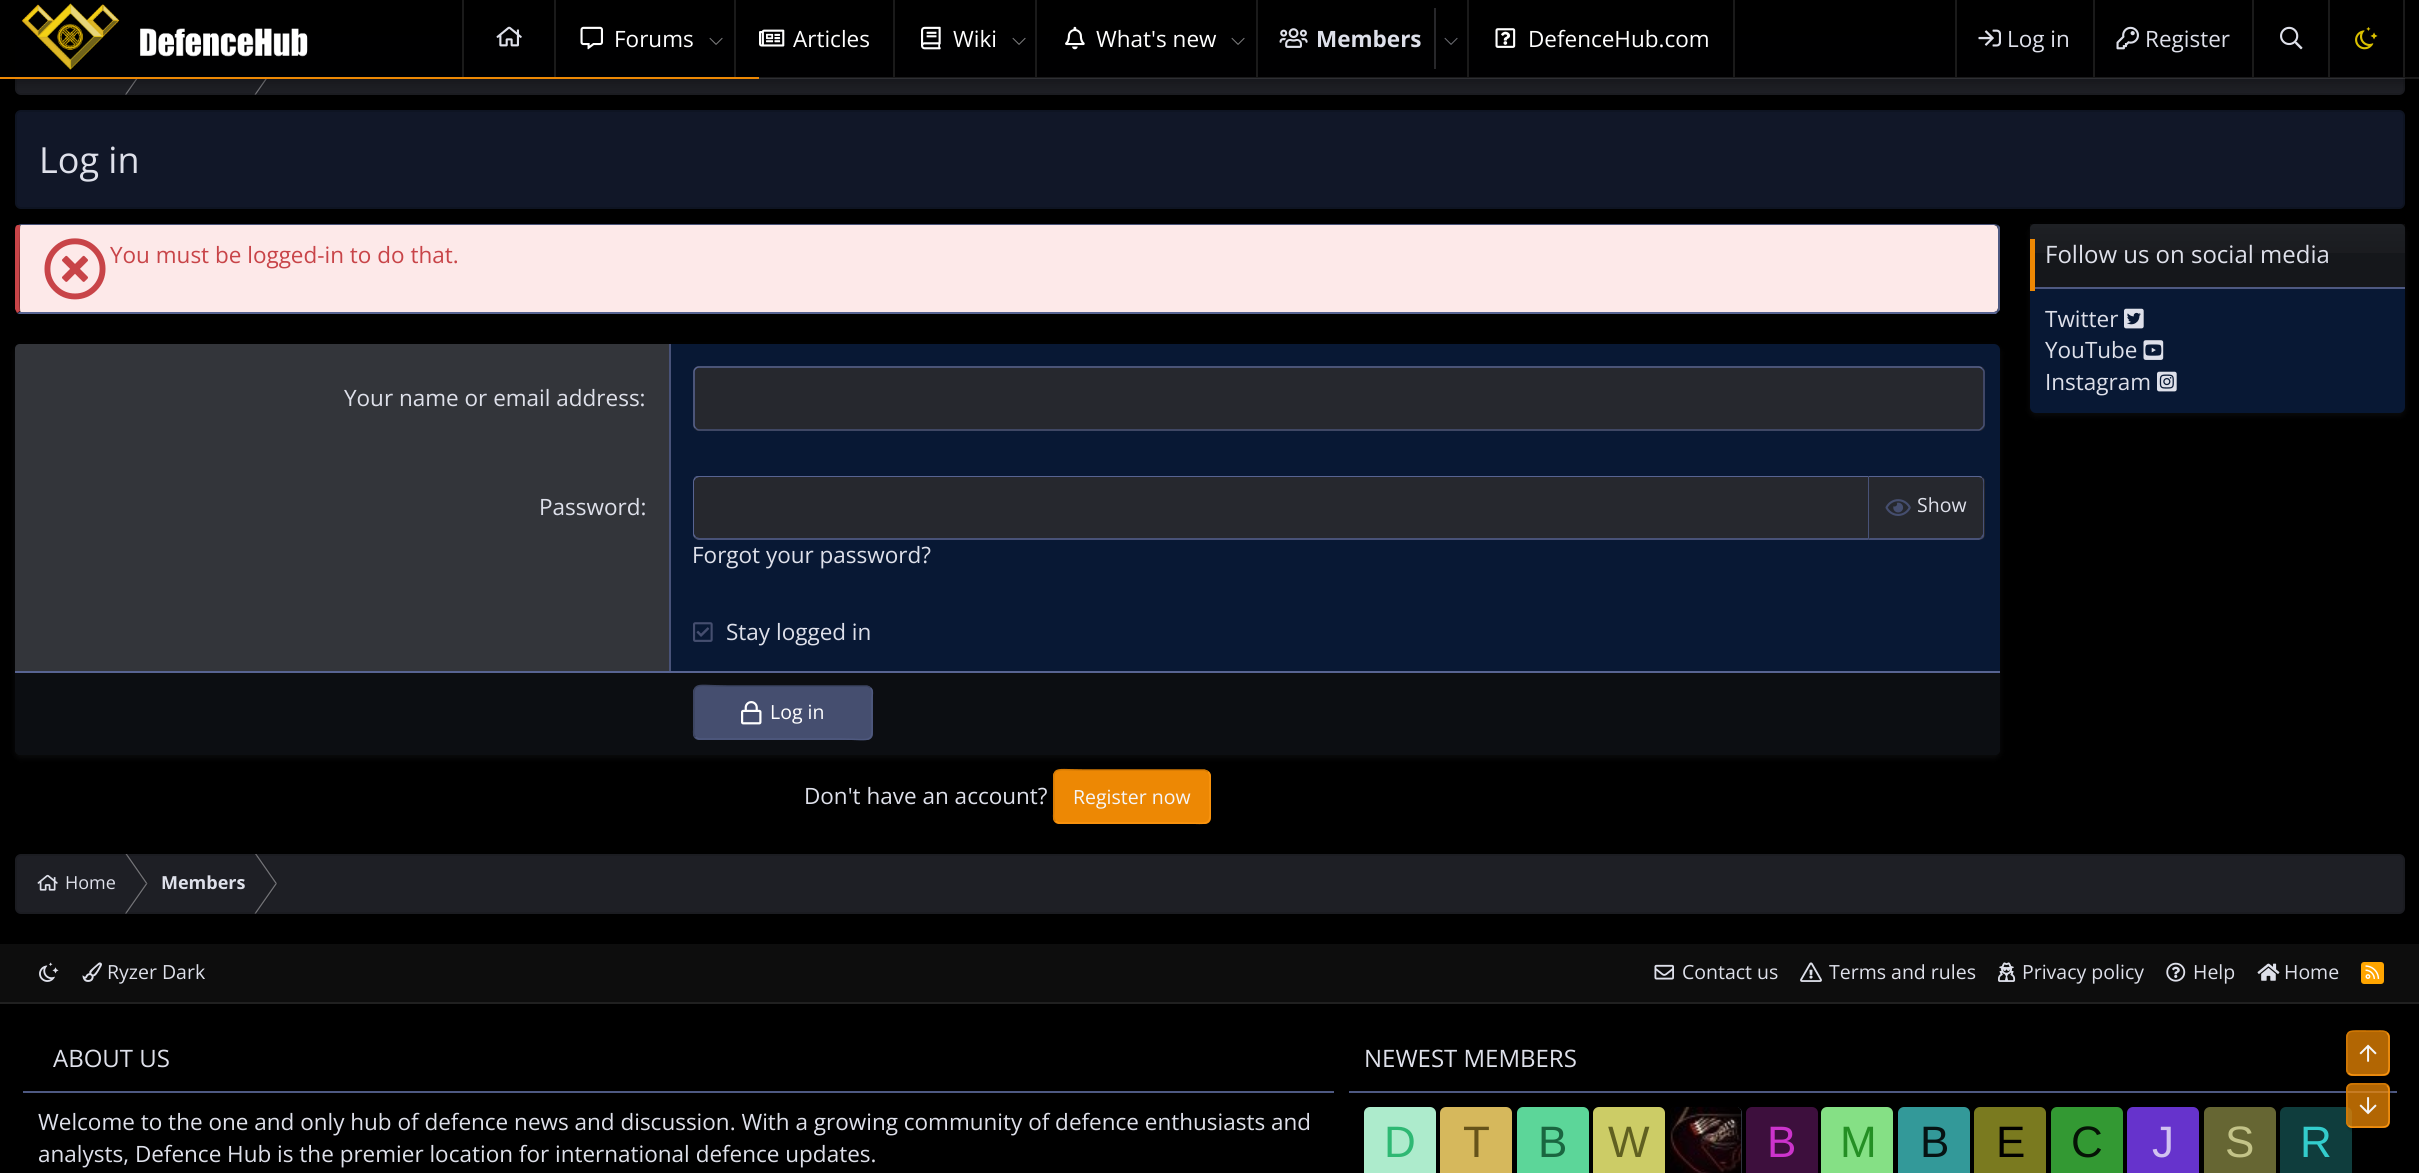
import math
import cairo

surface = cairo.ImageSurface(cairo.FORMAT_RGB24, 2419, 1173)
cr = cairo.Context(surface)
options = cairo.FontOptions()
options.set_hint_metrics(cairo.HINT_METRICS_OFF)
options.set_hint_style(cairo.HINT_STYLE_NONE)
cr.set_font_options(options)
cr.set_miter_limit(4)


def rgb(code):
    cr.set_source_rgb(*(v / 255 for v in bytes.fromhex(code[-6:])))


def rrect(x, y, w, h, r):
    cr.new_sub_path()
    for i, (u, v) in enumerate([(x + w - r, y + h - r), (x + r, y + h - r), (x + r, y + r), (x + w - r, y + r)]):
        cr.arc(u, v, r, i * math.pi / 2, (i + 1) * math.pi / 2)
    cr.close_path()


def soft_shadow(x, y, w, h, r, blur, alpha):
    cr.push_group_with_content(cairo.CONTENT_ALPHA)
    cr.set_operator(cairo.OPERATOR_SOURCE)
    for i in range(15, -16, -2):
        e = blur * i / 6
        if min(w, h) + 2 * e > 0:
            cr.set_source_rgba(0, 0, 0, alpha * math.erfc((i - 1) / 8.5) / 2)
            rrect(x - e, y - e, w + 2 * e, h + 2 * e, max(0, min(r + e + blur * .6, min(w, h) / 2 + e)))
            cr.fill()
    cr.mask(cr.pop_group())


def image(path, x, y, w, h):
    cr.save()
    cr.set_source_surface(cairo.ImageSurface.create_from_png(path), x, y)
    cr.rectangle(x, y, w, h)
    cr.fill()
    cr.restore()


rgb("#000000")
cr.paint()
rgb("#1e1f25")
rrect(15, 35, 2390, 60, 6)
cr.fill()
rgb("#747478")
cr.new_path()
cr.move_to(146, 64.5)
cr.line_to(147.5, 64.5)
cr.line_to(126.5, 94.5)
cr.line_to(125, 94.5)
cr.close_path()
cr.fill()
cr.set_source_rgba(0, 0, 0, 0.1)
cr.new_path()
cr.move_to(147.5, 64.5)
cr.line_to(149, 64.5)
cr.line_to(128, 94.5)
cr.line_to(126.5, 94.5)
cr.close_path()
cr.fill()
rgb("#747478")
cr.new_path()
cr.move_to(275.5, 64.5)
cr.line_to(277, 64.5)
cr.line_to(256, 94.5)
cr.line_to(254.5, 94.5)
cr.close_path()
cr.fill()
cr.set_source_rgba(0, 0, 0, 0.1)
cr.new_path()
cr.move_to(277, 64.5)
cr.line_to(278.5, 64.5)
cr.line_to(257.5, 94.5)
cr.line_to(256, 94.5)
cr.close_path()
cr.fill()
rrect(16, 36, 2388, 58, 5)
cr.stroke()
rgb("#000000")
soft_shadow(-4, -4, 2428, 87, 0, 6, 0.3)
rgb("#000001")
cr.rectangle(15, 35, 2390, 43)
cr.fill()
cr.set_source_rgba(1, 1, 1, 0.1)
cr.rectangle(759, 77, 1660, 2)
cr.fill()
image("img/1.png", 21, 3, 287, 67)
rgb("#1a1a1a")
cr.rectangle(462, 0, 2, 77)
cr.fill()
image("img/2.png", 496, 26, 26, 21)
cr.rectangle(554, 0, 2, 77)
cr.fill()
image("img/3.png", 580, 26, 23, 24)
image("img/4.png", 709, 37, 14, 8)
cr.rectangle(734, 0, 2, 77)
cr.fill()
image("img/5.png", 759, 29, 26, 18)
cr.rectangle(893, 0, 2, 77)
cr.fill()
image("img/6.png", 921, 26, 20, 24)
image("img/4.png", 1012, 37, 14, 8)
cr.rectangle(1035, 0, 2, 77)
cr.fill()
image("img/7.png", 1065, 26, 20, 24)
image("img/4.png", 1231, 37, 14, 8)
cr.rectangle(1256, 0, 2, 77)
cr.fill()
image("img/8.png", 1279, 28, 29, 20)
rgb("#27272a")
cr.rectangle(1434, 8, 2, 61)
cr.fill()
image("img/9.png", 1444, 37, 14, 8)
rgb("#1a1a1a")
cr.rectangle(1733, 0, 2, 77)
cr.fill()
cr.rectangle(1467, 0, 2, 77)
cr.fill()
image("img/10.png", 1495, 28, 21, 20)
cr.rectangle(1955, 0, 2, 77)
cr.fill()
image("img/11.png", 1978, 29, 23, 18)
cr.rectangle(2093, 0, 2, 77)
cr.fill()
image("img/12.png", 2116, 26, 23, 24)
cr.rectangle(2403, 0, 2, 77)
cr.fill()
cr.rectangle(2252, 0, 2, 77)
cr.fill()
image("img/13.png", 2280, 26, 23, 24)
cr.rectangle(2328, 0, 2, 77)
cr.fill()
image("img/14.png", 2355, 27, 23, 23)
rgb("#ed8804")
cr.rectangle(0, 77, 759, 2)
cr.fill()
rgb("#111728")
rrect(15, 110, 2390, 99, 6)
cr.fill()
rrect(16, 111, 2388, 97, 5)
cr.set_source_rgba(0, 0, 0, 0.15)
cr.stroke()
rgb("#fde9e9")
cr.new_path()
cr.move_to(21, 225)
cr.line_to(1994, 225)
cr.curve_to(1996, 225, 1998, 227, 1998, 230)
cr.line_to(1998, 308)
cr.curve_to(1998, 310, 1996, 312, 1994, 312)
cr.line_to(21, 312)
cr.curve_to(20, 312, 20, 310, 20, 308)
cr.line_to(20, 230)
cr.curve_to(20, 227, 20, 225, 21, 225)
cr.close_path()
cr.fill()
rgb("#485278")
cr.new_path()
cr.move_to(21, 224)
cr.line_to(18, 225)
cr.line_to(20, 225)
cr.line_to(1994, 225)
cr.line_to(1997, 226)
cr.line_to(1998, 225)
cr.line_to(1994, 224)
cr.close_path()
cr.fill()
rgb("#4e5982")
cr.new_path()
cr.move_to(1998, 225)
cr.line_to(2000, 227)
cr.line_to(2000, 310)
cr.line_to(1998, 312)
cr.line_to(1997, 311)
cr.line_to(1998, 308)
cr.line_to(1998, 229)
cr.line_to(1997, 226)
cr.close_path()
cr.fill()
rgb("#586492")
cr.new_path()
cr.move_to(19, 314)
cr.line_to(17, 313)
cr.line_to(20, 312)
cr.line_to(1994, 312)
cr.line_to(1997, 311)
cr.line_to(1998, 312)
cr.line_to(1996, 314)
cr.close_path()
cr.fill()
rgb("#c84448")
cr.new_path()
cr.move_to(15, 230)
cr.line_to(15, 309)
cr.line_to(17, 313)
cr.line_to(20, 311)
cr.curve_to(19, 309, 20, 226, 20, 225)
cr.line_to(18, 225)
cr.curve_to(16, 225, 15, 227, 15, 230)
cr.close_path()
cr.fill()
image("img/15.png", 44, 238, 62, 62)
rgb("#6c6f73")
soft_shadow(15, 347, 1985, 411, 6, 3, 0.1)
rgb("#081834")
rrect(15, 344, 1985, 411, 6)
cr.fill()
rgb("#33353a")
cr.new_path()
cr.move_to(20, 344)
cr.line_to(671, 344)
cr.line_to(671, 453)
cr.line_to(15, 453)
cr.line_to(15, 349)
cr.curve_to(15, 346, 17, 344, 20, 344)
cr.close_path()
cr.fill()
rgb("#485278")
cr.rectangle(669, 344, 2, 327)
cr.fill()
rgb("#26282e")
rrect(693, 366, 1292, 65, 6)
cr.fill()
cr.new_path()
cr.move_to(1982, 368.5)
cr.curve_to(1983, 369.5, 1984, 370.5, 1984, 372)
cr.line_to(1984, 424.5)
cr.curve_to(1984, 426, 1983, 427, 1982, 428)
cr.curve_to(1981, 429, 1980, 430, 1978.5, 430)
cr.line_to(699, 430)
cr.curve_to(697.5, 430, 696.5, 429, 695.5, 428)
rgb("#485278")
cr.set_line_width(1.5)
cr.stroke()
cr.new_path()
cr.move_to(695.5, 428)
cr.curve_to(694.5, 427, 694, 426, 694, 424.5)
cr.line_to(694, 372)
cr.curve_to(694, 370.5, 694.5, 369.5, 695.5, 368.5)
cr.curve_to(696.5, 367.5, 697.5, 367, 699, 367)
cr.line_to(1978.5, 367)
cr.curve_to(1980, 367, 1981, 367.5, 1982, 368.5)
rgb("#586492")
cr.stroke()
rgb("#33353a")
cr.rectangle(15, 453, 654, 218)
cr.fill()
rgb("#26282e")
cr.new_path()
cr.move_to(699, 476)
cr.line_to(1868, 476)
cr.line_to(1868, 540)
cr.line_to(699, 540)
cr.curve_to(695.5, 540, 693, 537.5, 693, 534)
cr.line_to(693, 482)
cr.curve_to(693, 478.5, 695.5, 476, 699, 476)
cr.close_path()
cr.fill()
rgb("#586492")
cr.new_path()
cr.move_to(699, 476)
cr.line_to(1868, 476)
cr.line_to(1868, 477)
cr.line_to(699, 477)
cr.line_to(696, 478)
cr.line_to(695, 477)
cr.curve_to(696, 476, 698, 476, 699, 476)
cr.close_path()
cr.fill()
rgb("#485278")
cr.new_path()
cr.move_to(1868, 540)
cr.line_to(1868, 538)
cr.line_to(699, 538)
cr.line_to(696, 537)
cr.line_to(695, 538)
cr.curve_to(696, 539, 698, 540, 699, 540)
cr.close_path()
cr.fill()
rgb("#586492")
cr.new_path()
cr.move_to(696, 537)
cr.line_to(695, 538)
cr.curve_to(694, 537, 693, 536, 693, 534)
cr.line_to(693, 482)
cr.curve_to(693, 480, 694, 478, 695, 477)
cr.line_to(696, 478)
cr.line_to(694, 481)
cr.line_to(694, 534)
cr.close_path()
cr.fill()
rgb("#26282e")
cr.new_path()
cr.move_to(1868, 476)
cr.line_to(1979, 476)
cr.curve_to(1982.5, 476, 1985, 478.5, 1985, 482)
cr.line_to(1985, 534)
cr.curve_to(1985, 537.5, 1982.5, 540, 1979, 540)
cr.line_to(1868, 540)
cr.close_path()
cr.fill()
rgb("#586492")
cr.new_path()
cr.move_to(1868, 476)
cr.line_to(1869, 477)
cr.line_to(1979, 477)
cr.line_to(1982, 478)
cr.curve_to(1982, 476, 1980, 476, 1978, 476)
cr.close_path()
cr.fill()
rgb("#485278")
cr.new_path()
cr.move_to(1982, 478)
cr.curve_to(1984, 478, 1984, 480, 1984, 482)
cr.line_to(1984, 534)
cr.curve_to(1984, 535, 1984, 537, 1983, 538)
cr.line_to(1981, 537)
cr.line_to(1983, 534)
cr.line_to(1983, 491)
cr.curve_to(1983, 489, 1984, 481, 1982, 478)
cr.close_path()
cr.fill()
cr.new_path()
cr.move_to(1868, 540)
cr.line_to(1979, 540)
cr.line_to(1983, 538)
cr.line_to(1981, 537)
cr.curve_to(1981, 538, 1979, 538, 1978, 538)
cr.line_to(1870, 538)
cr.close_path()
cr.fill()
cr.new_path()
cr.move_to(1869, 477)
cr.line_to(1868, 476)
cr.line_to(1868, 540)
cr.line_to(1870, 538)
cr.line_to(1869, 538)
cr.close_path()
cr.fill()
image("img/16.png", 1885, 499, 26, 17)
image("img/17.png", 693, 622, 20, 20)
cr.set_source_rgba(0.051, 0.055, 0.059, 0.9)
cr.new_path()
cr.move_to(15, 671)
cr.line_to(2000, 671)
cr.line_to(2000, 750)
cr.curve_to(2000, 753, 1998, 755, 1995, 755)
cr.line_to(20, 755)
cr.curve_to(17, 755, 15, 753, 15, 750)
cr.close_path()
cr.fill()
rgb("#586492")
cr.rectangle(15, 671, 1985, 2)
cr.fill()
rgb("#454e6f")
rrect(693, 686, 180, 54, 6)
cr.fill()
cr.new_path()
cr.move_to(870.5, 688)
cr.curve_to(873.5, 690.5, 872, 695.5, 872, 698.5)
cr.line_to(872, 712.5)
cr.curve_to(872, 746, 876.5, 739, 839, 739)
cr.line_to(699, 739)
cr.curve_to(697.5, 738.5, 696.5, 738, 695.5, 737)
rgb("#4f597f")
cr.stroke()
cr.new_path()
cr.move_to(695.5, 737)
cr.curve_to(692.5, 734.5, 694, 729.5, 694, 726.5)
cr.line_to(694, 712.5)
cr.curve_to(694, 679, 689.5, 686, 727, 686)
cr.line_to(867, 686)
cr.curve_to(868.5, 686.5, 869.5, 687, 870.5, 688)
rgb("#3b435f")
cr.stroke()
image("img/18.png", 741, 701, 21, 24)
rgb("#ed8804")
rrect(1053, 770, 158, 54, 6)
cr.fill()
cr.new_path()
cr.move_to(1208, 772)
cr.curve_to(1211, 774.5, 1210, 779.5, 1210, 782.5)
cr.line_to(1210, 796.5)
cr.curve_to(1210, 828.5, 1214.5, 823, 1180, 823)
cr.line_to(1059, 823)
cr.curve_to(1057.5, 822.5, 1056.5, 822, 1055.5, 821)
rgb("#fb9510")
cr.stroke()
cr.new_path()
cr.move_to(1055.5, 821)
cr.curve_to(1052.5, 818.5, 1054, 813.5, 1054, 810.5)
cr.line_to(1054, 796.5)
cr.curve_to(1054, 764.5, 1049, 770, 1083, 770)
cr.line_to(1204.5, 770)
cr.curve_to(1206, 770.5, 1207, 771, 1208, 772)
rgb("#d47a04")
cr.stroke()
rgb("#6c6f73")
soft_shadow(2030, 227, 375, 189, 6, 3, 0.1)
rgb("#081834")
rrect(2030, 224, 375, 189, 6)
cr.fill()
rgb("#15171b")
cr.new_path()
cr.move_to(2035, 224)
cr.line_to(2400, 224)
cr.curve_to(2403, 224, 2405, 226, 2405, 229)
cr.line_to(2405, 288)
cr.line_to(2030, 288)
cr.line_to(2030, 229)
cr.curve_to(2030, 226, 2032, 224, 2035, 224)
cr.close_path()
cr.fill()
gradient = cairo.LinearGradient(2217, 224, 2217, 287)
gradient.add_color_stop_rgba(0, 1, 1, 1, 0.04)
gradient.add_color_stop_rgba(1, 1, 1, 1, 0)
cr.set_source(gradient)
cr.rectangle(2030, 224, 375, 29)
cr.fill()
rgb("#4e5982")
cr.rectangle(2030, 287, 375, 2)
cr.fill()
rgb("#ed8804")
cr.rectangle(2030, 239, 5, 52)
cr.fill()
image("img/19.png", 2124, 308, 20, 21)
image("img/20.png", 2143, 340, 21, 20)
image("img/21.png", 2157, 371, 20, 21)
rgb("#1e1f25")
rrect(15, 854, 2390, 60, 6)
cr.fill()
image("img/22.png", 37, 874, 21, 17)
rgb("#747478")
cr.new_path()
cr.move_to(127, 854)
cr.line_to(147.5, 883.5)
cr.line_to(146, 883.5)
cr.line_to(125.5, 854)
cr.close_path()
cr.fill()
cr.set_source_rgba(0, 0, 0, 0.1)
cr.new_path()
cr.move_to(128.5, 854)
cr.line_to(149, 883.5)
cr.line_to(147.5, 883.5)
cr.line_to(127, 854)
cr.close_path()
cr.fill()
rgb("#747478")
cr.new_path()
cr.move_to(146, 883.5)
cr.line_to(147.5, 883.5)
cr.line_to(126.5, 913.5)
cr.line_to(125, 913.5)
cr.close_path()
cr.fill()
cr.set_source_rgba(0, 0, 0, 0.1)
cr.new_path()
cr.move_to(147.5, 883.5)
cr.line_to(149, 883.5)
cr.line_to(128, 913.5)
cr.line_to(126.5, 913.5)
cr.close_path()
cr.fill()
rgb("#747478")
cr.new_path()
cr.move_to(256.5, 854)
cr.line_to(277, 883.5)
cr.line_to(275.5, 883.5)
cr.line_to(255, 854)
cr.close_path()
cr.fill()
cr.set_source_rgba(0, 0, 0, 0.1)
cr.new_path()
cr.move_to(258, 854)
cr.line_to(278.5, 883.5)
cr.line_to(277, 883.5)
cr.line_to(256.5, 854)
cr.close_path()
cr.fill()
rgb("#747478")
cr.new_path()
cr.move_to(275.5, 883.5)
cr.line_to(277, 883.5)
cr.line_to(256, 913.5)
cr.line_to(254.5, 913.5)
cr.close_path()
cr.fill()
cr.set_source_rgba(0, 0, 0, 0.1)
cr.new_path()
cr.move_to(277, 883.5)
cr.line_to(278.5, 883.5)
cr.line_to(257.5, 913.5)
cr.line_to(256, 913.5)
cr.close_path()
cr.fill()
rrect(16, 855, 2388, 58, 5)
cr.set_line_width(2)
cr.stroke()
rgb("#0d0d0d")
cr.rectangle(0, 944, 2419, 58)
cr.fill()
rgb("#202020")
cr.rectangle(0, 1002, 2419, 2)
cr.fill()
image("img/23.png", 39, 962, 20, 20)
image("img/24.png", 82, 962, 20, 20)
image("img/25.png", 1654, 964, 20, 16)
image("img/26.png", 1800, 962, 22, 20)
image("img/27.png", 1998, 962, 18, 20)
image("img/28.png", 2166, 962, 20, 20)
image("img/29.png", 2257, 963, 23, 18)
rgb("#ffa500")
rrect(2361, 962, 23, 22, 3)
cr.fill()
image("img/30.png", 2365, 965, 15, 14)
rgb("#4e5982")
cr.rectangle(23, 1091, 1311, 2)
cr.fill()
cr.rectangle(1349, 1091, 1048, 2)
cr.fill()
rgb("#adebcc")
rrect(1364, 1107, 72, 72, 6)
cr.fill()
rgb("#d6b85c")
rrect(1440, 1107, 72, 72, 6)
cr.fill()
rgb("#5cd699")
rrect(1517, 1107, 72, 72, 6)
cr.fill()
rgb("#cccc66")
rrect(1593, 1107, 72, 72, 6)
cr.fill()
rgb("#363c49")
rrect(1670, 1107, 72, 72, 6)
cr.fill()
image("img/31.png", 1670, 1106, 72, 67)
rgb("#3d0f3d")
rrect(1746, 1107, 72, 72, 6)
cr.fill()
rgb("#85e085")
rrect(1821, 1107, 72, 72, 6)
cr.fill()
rgb("#339999")
rrect(1898, 1107, 72, 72, 6)
cr.fill()
rgb("#7a7a1f")
rrect(1974, 1107, 72, 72, 6)
cr.fill()
rgb("#339933")
rrect(2051, 1107, 72, 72, 6)
cr.fill()
rgb("#6633cc")
rrect(2127, 1107, 72, 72, 6)
cr.fill()
rgb("#666633")
rrect(2204, 1107, 72, 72, 6)
cr.fill()
rgb("#0f3d3d")
rrect(2280, 1107, 72, 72, 6)
cr.fill()
rgb("#b26603")
rrect(2346, 1031, 44, 45, 6)
cr.fill()
cr.new_path()
cr.move_to(2387, 1033)
cr.curve_to(2389.5, 1035, 2389, 1039, 2389, 1042)
cr.line_to(2389, 1053)
cr.curve_to(2389, 1077.5, 2392, 1075, 2368, 1075)
cr.line_to(2357, 1075)
cr.curve_to(2354.5, 1075, 2350.5, 1075.5, 2348.5, 1073)
rgb("#fb9510")
cr.set_line_width(1.5)
cr.stroke()
cr.new_path()
cr.move_to(2348.5, 1073)
cr.curve_to(2346, 1071, 2347, 1067, 2347, 1064)
cr.line_to(2347, 1053)
cr.curve_to(2347, 1028.5, 2343.5, 1031, 2368, 1031)
cr.line_to(2378, 1031)
cr.curve_to(2381, 1031, 2385, 1030.5, 2387, 1033)
rgb("#d47a04")
cr.stroke()
image("img/32.png", 2359, 1044, 18, 18)
cr.save()
cr.set_fill_rule(cairo.FILL_RULE_EVEN_ODD)
cr.new_path()
cr.move_to(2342, 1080)
cr.line_to(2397, 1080)
cr.line_to(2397, 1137)
cr.line_to(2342, 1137)
cr.close_path()
cr.move_to(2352, 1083)
cr.line_to(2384, 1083)
cr.curve_to(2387.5, 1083, 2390, 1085.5, 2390, 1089)
cr.line_to(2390, 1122)
cr.curve_to(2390, 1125.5, 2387.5, 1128, 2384, 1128)
cr.line_to(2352, 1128)
cr.curve_to(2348.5, 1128, 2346, 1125.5, 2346, 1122)
cr.line_to(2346, 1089)
cr.curve_to(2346, 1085.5, 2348.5, 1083, 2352, 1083)
cr.close_path()
cr.clip()
rgb("#000000")
soft_shadow(2348, 1086, 43, 45, 6, 1.5, 0.25)
cr.restore()
cr.set_source_rgba(0.929, 0.533, 0.016, 0.75)
rrect(2346, 1083, 44, 45, 6)
cr.fill()
cr.new_path()
cr.move_to(2387, 1085.5)
cr.curve_to(2389.5, 1087.5, 2389, 1091.5, 2389, 1094.5)
cr.line_to(2389, 1105.5)
cr.curve_to(2389, 1130, 2392, 1127, 2368, 1127)
cr.line_to(2357, 1127)
cr.curve_to(2354.5, 1127, 2350.5, 1128, 2348.5, 1125.5)
rgb("#fb9510")
cr.stroke()
cr.new_path()
cr.move_to(2348.5, 1125.5)
cr.curve_to(2346, 1123.5, 2347, 1119.5, 2347, 1116.5)
cr.line_to(2347, 1105.5)
cr.curve_to(2347, 1081, 2343.5, 1084, 2368, 1084)
cr.line_to(2378, 1084)
cr.curve_to(2381, 1084, 2385, 1083, 2387, 1085.5)
rgb("#d47a04")
cr.stroke()
image("img/33.png", 2359, 1097, 18, 18)
cr.select_font_face("Open Sans")
cr.set_font_size(22.5)
rgb("#ffffff")
for x, y, s in [
    (614, 47, "Forums"),
    (793, 47, "Articles"),
    (953, 47, "Wiki"),
    (1096, 47, "What's new"),
]:
    cr.move_to(x, y)
    cr.show_text(s)
cr.select_font_face("Open Sans", cairo.FONT_SLANT_NORMAL, cairo.FONT_WEIGHT_BOLD)
rgb("#dee0ea")
cr.move_to(1316, 47)
cr.show_text("Members")
cr.select_font_face("Open Sans")
rgb("#ffffff")
cr.move_to(1528, 47)
cr.show_text("DefenceHub.com")
rgb("#dee0ea")
cr.move_to(2007, 47)
cr.show_text("Log in")
cr.move_to(2145, 47)
cr.show_text("Register")
cr.set_font_size(36)
cr.move_to(39, 173)
cr.show_text("Log in")
cr.set_font_size(22.5)
rgb("#c84448")
cr.move_to(110, 263)
cr.show_text("You must be logged-in to do that.")
rgb("#dee0ea")
cr.move_to(344, 406)
cr.show_text("Your name or email address:")
cr.move_to(539, 515)
cr.show_text("Password:")
cr.set_font_size(19.5)
cr.move_to(1917, 512)
cr.show_text("Show")
cr.set_font_size(22.5)
cr.move_to(692, 563)
cr.show_text("Forgot your password?")
cr.move_to(726, 640)
cr.show_text("Stay logged in")
cr.set_font_size(19.5)
rgb("#ffffff")
cr.move_to(770, 719)
cr.show_text("Log in")
cr.set_font_size(22.5)
rgb("#dee0ea")
cr.move_to(804, 804)
cr.show_text("Don't have an account?")
cr.set_font_size(19.5)
rgb("#f5f6f9")
cr.move_to(1073, 804)
cr.show_text("Register now")
cr.set_font_size(24)
rgb("#dee0ea")
cr.move_to(2045, 263)
cr.show_text("Follow us on social media")
cr.set_font_size(22.5)
for x, y, s in [
    (2045, 327, "Twitter"),
    (2045, 358, "YouTube"),
    (2045, 390, "Instagram"),
]:
    cr.move_to(x, y)
    cr.show_text(s)
cr.set_font_size(18)
cr.move_to(65, 889)
cr.show_text("Home")
cr.select_font_face("Open Sans", cairo.FONT_SLANT_NORMAL, cairo.FONT_WEIGHT_BOLD)
cr.move_to(161, 889)
cr.show_text("Members")
cr.select_font_face("Open Sans")
cr.set_font_size(19.5)
for x, y, s in [
    (107, 979, "Ryzer Dark"),
    (1682, 979, "Contact us"),
    (1829, 979, "Terms and rules"),
    (2022, 979, "Privacy policy"),
    (2193, 979, "Help"),
    (2284, 979, "Home"),
]:
    cr.move_to(x, y)
    cr.show_text(s)
cr.set_font_size(24)
cr.move_to(53, 1067)
cr.show_text("ABOUT US")
cr.set_font_size(22.5)
cr.move_to(38, 1130)
cr.show_text("Welcome to the one and only hub of defence news and discussion. With a growing community of defence enthusiasts and")
cr.move_to(38, 1162)
cr.show_text("analysts, Defence Hub is the premier location for international defence updates.")
cr.set_font_size(24)
cr.move_to(1364, 1067)
cr.show_text("NEWEST MEMBERS")
cr.select_font_face("Liberation Sans")
cr.set_font_size(44)
rgb("#2eb873")
cr.move_to(1384, 1157)
cr.show_text("D")
rgb("#66531a")
cr.move_to(1463, 1157)
cr.show_text("T")
rgb("#1a6640")
cr.move_to(1538, 1157)
cr.show_text("B")
rgb("#606020")
cr.move_to(1608, 1157)
cr.show_text("W")
rgb("#cc33cc")
cr.move_to(1767, 1157)
cr.show_text("B")
rgb("#248f24")
cr.move_to(1840, 1157)
cr.show_text("M")
rgb("#061313")
cr.move_to(1920, 1157)
cr.show_text("B")
rgb("#000000")
cr.move_to(1996, 1157)
cr.show_text("E")
rgb("#061306")
cr.move_to(2071, 1157)
cr.show_text("C")
rgb("#d1c2f0")
cr.move_to(2152, 1157)
cr.show_text("J")
rgb("#c3c388")
cr.move_to(2225, 1157)
cr.show_text("S")
rgb("#33cccc")
cr.move_to(2300, 1157)
cr.show_text("R")
surface.write_to_png("page.png")
